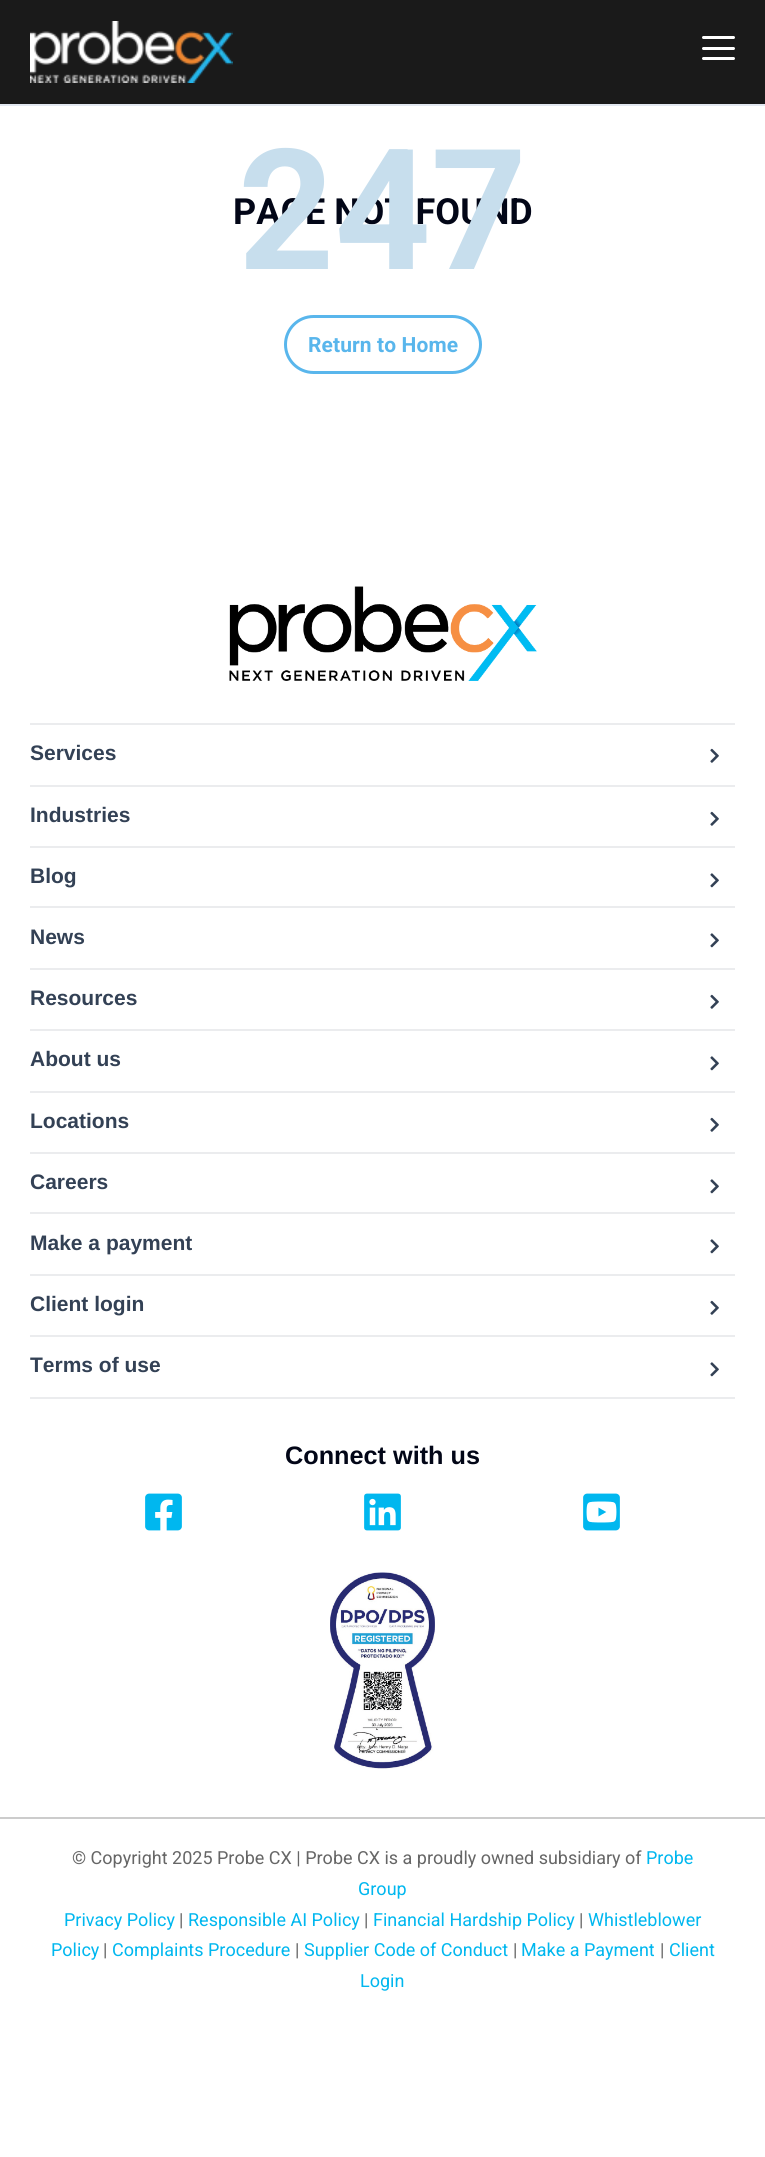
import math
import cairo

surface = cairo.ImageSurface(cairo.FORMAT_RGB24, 765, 2157)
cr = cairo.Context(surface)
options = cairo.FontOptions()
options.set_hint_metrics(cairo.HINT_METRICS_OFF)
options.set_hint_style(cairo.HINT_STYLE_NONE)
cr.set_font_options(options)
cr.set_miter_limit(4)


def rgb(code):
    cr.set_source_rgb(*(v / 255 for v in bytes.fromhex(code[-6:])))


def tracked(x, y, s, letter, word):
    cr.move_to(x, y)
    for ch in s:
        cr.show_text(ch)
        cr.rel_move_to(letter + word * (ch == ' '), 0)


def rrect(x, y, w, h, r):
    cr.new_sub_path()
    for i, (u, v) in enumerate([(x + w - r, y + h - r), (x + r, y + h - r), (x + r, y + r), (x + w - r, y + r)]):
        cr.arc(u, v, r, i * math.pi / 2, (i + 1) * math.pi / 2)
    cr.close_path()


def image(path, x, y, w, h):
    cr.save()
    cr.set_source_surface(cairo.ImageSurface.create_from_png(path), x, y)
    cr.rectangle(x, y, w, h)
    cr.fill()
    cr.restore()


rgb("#ffffff")
cr.paint()
rgb("#1a1a1a")
cr.rectangle(0, 0, 765, 104)
cr.fill()
rgb("#e2e8f0")
cr.rectangle(0, 104, 765, 2)
cr.fill()
image("img/1.png", 30, 21, 203, 62)
rgb("#ffffff")
rrect(702, 47, 33, 3, 1.5)
cr.fill()
rrect(702, 36, 33, 3, 1.5)
cr.fill()
rrect(702, 57, 33, 3, 1.5)
cr.fill()
rrect(285.5, 316.5, 195, 56, 28)
rgb("#59b6ec")
cr.set_line_width(3)
cr.stroke()
image("img/2.png", 229, 586, 308, 95)
rgb("#ebecee")
cr.rectangle(30, 723, 705, 2)
cr.fill()
cr.rectangle(30, 785, 705, 2)
cr.fill()
image("img/3.png", 710, 748, 9, 15)
cr.rectangle(30, 846, 705, 2)
cr.fill()
image("img/3.png", 710, 811, 9, 15)
cr.rectangle(30, 906, 705, 2)
cr.fill()
image("img/4.png", 710, 873, 9, 15)
cr.rectangle(30, 968, 705, 2)
cr.fill()
image("img/4.png", 710, 933, 9, 15)
cr.rectangle(30, 1029, 705, 2)
cr.fill()
image("img/3.png", 710, 994, 9, 15)
cr.rectangle(30, 1091, 705, 2)
cr.fill()
image("img/4.png", 710, 1056, 9, 15)
cr.rectangle(30, 1152, 705, 2)
cr.fill()
image("img/3.png", 710, 1117, 9, 15)
cr.rectangle(30, 1212, 705, 2)
cr.fill()
image("img/4.png", 710, 1179, 9, 15)
cr.rectangle(30, 1274, 705, 2)
cr.fill()
image("img/4.png", 710, 1239, 9, 15)
cr.rectangle(30, 1335, 705, 2)
cr.fill()
image("img/3.png", 710, 1300, 9, 15)
cr.rectangle(30, 1397, 705, 2)
cr.fill()
image("img/4.png", 710, 1362, 9, 15)
image("img/5.png", 145, 1493, 37, 38)
image("img/6.png", 364, 1493, 37, 38)
image("img/7.png", 583, 1493, 37, 38)
image("img/8.png", 330, 1572, 105, 197)
rgb("#cccccc")
cr.rectangle(0, 1817, 765, 2)
cr.fill()
cr.select_font_face("Roboto", cairo.FONT_SLANT_NORMAL, cairo.FONT_WEIGHT_BOLD)
cr.set_font_size(36)
rgb("#020617")
cr.move_to(233, 224)
cr.show_text("PAGE NOT FOUND")
cr.set_font_size(168)
rgb("#c7deed")
cr.move_to(238, 269)
cr.show_text("247")
cr.set_font_size(21)
rgb("#59b6ec")
tracked(308, 352, "Return to Home", 0.1, 0)
cr.select_font_face("Liberation Sans", cairo.FONT_SLANT_NORMAL, cairo.FONT_WEIGHT_BOLD)
rgb("#334155")
for x, y, s in [
    (30, 760, "Services"),
    (30, 822, "Industries"),
    (30, 883, "Blog"),
    (30, 944, "News"),
    (30, 1005, "Resources"),
    (30, 1066, "About us"),
    (30, 1128, "Locations"),
    (30, 1189, "Careers"),
    (30, 1250, "Make a payment"),
    (30, 1311, "Client login"),
    (30, 1372, "Terms of use"),
]:
    cr.move_to(x, y)
    cr.show_text(s)
cr.set_font_size(25.25)
rgb("#020617")
cr.move_to(285, 1464)
cr.show_text("Connect with us")
cr.select_font_face("Roboto")
cr.set_font_size(18)
rgb("#666666")
cr.move_to(72, 1864)
cr.show_text("© Copyright 2025 Probe CX | Probe CX is a proudly owned subsidiary of")
rgb("#00b7ef")
for x, y, s in [
    (646, 1864, "Probe"),
    (358, 1895, "Group"),
    (64, 1926, "Privacy Policy"),
]:
    cr.move_to(x, y)
    cr.show_text(s)
rgb("#666666")
cr.move_to(179, 1926)
cr.show_text("|")
rgb("#00b7ef")
cr.move_to(188, 1926)
cr.show_text("Responsible AI Policy")
rgb("#666666")
cr.move_to(364, 1926)
cr.show_text("|")
rgb("#00b7ef")
cr.move_to(373, 1926)
cr.show_text("Financial Hardship Policy")
rgb("#666666")
cr.move_to(579, 1926)
cr.show_text("|")
rgb("#00b7ef")
cr.move_to(588, 1926)
cr.show_text("Whistleblower")
cr.move_to(51, 1956)
cr.show_text("Policy")
rgb("#666666")
cr.move_to(103, 1956)
cr.show_text("|")
rgb("#00b7ef")
cr.move_to(112, 1956)
cr.show_text("Complaints Procedure")
rgb("#666666")
cr.move_to(295, 1956)
cr.show_text("|")
rgb("#00b7ef")
cr.move_to(304, 1956)
cr.show_text("Supplier Code of Conduct")
rgb("#666666")
cr.move_to(513, 1956)
cr.show_text("|")
rgb("#00b7ef")
cr.move_to(521, 1956)
cr.show_text("Make a Payment")
rgb("#666666")
cr.move_to(660, 1956)
cr.show_text("|")
rgb("#00b7ef")
cr.move_to(669, 1956)
cr.show_text("Client")
cr.move_to(360, 1987)
cr.show_text("Login")
surface.write_to_png("page.png")
